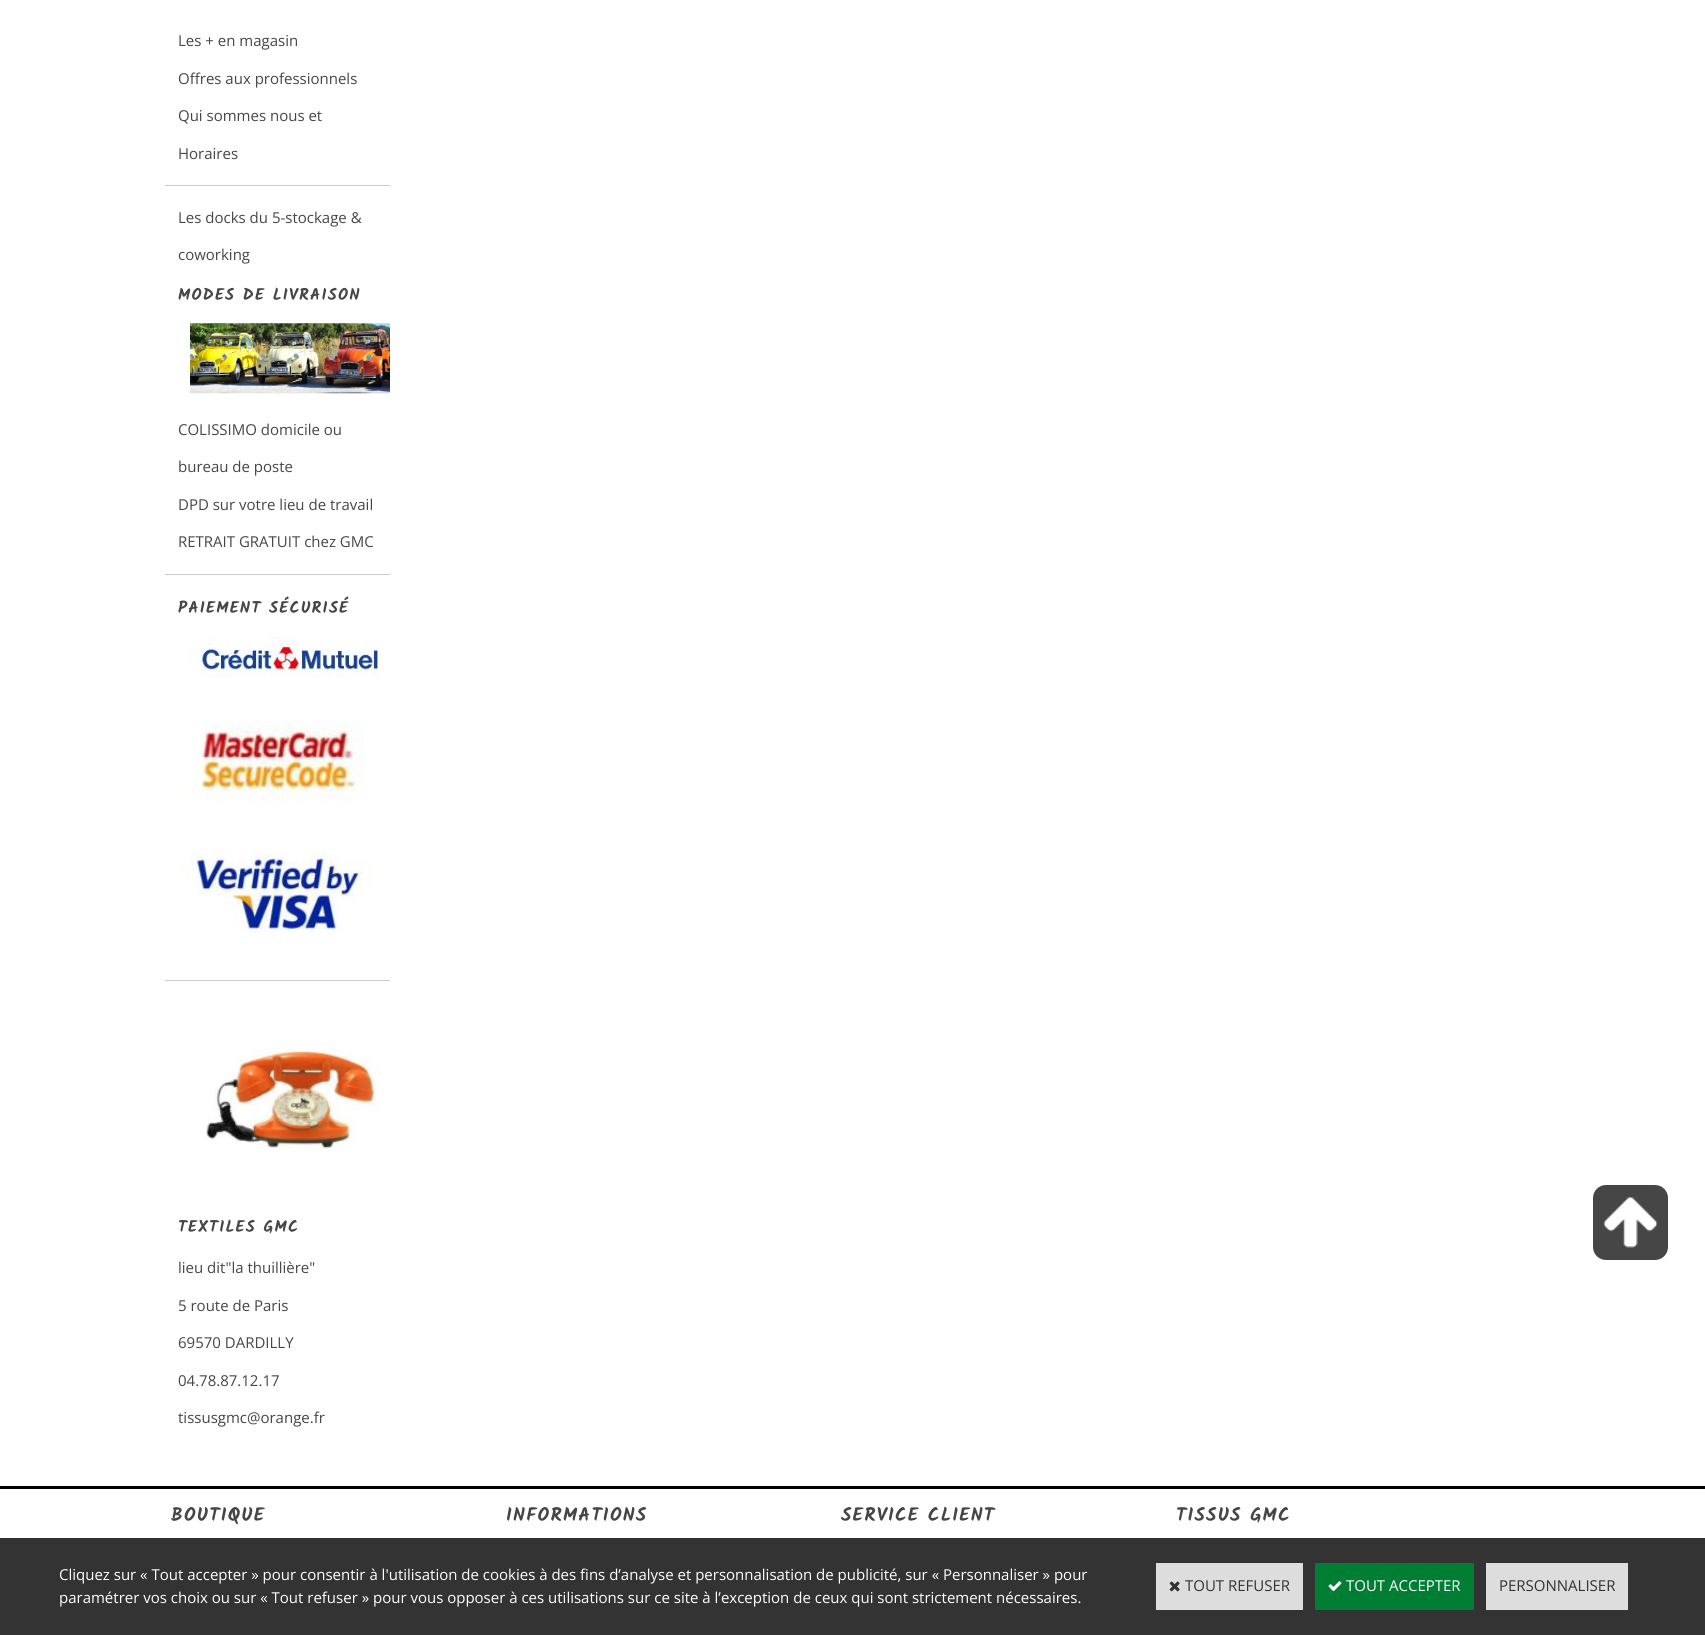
import math
import cairo

surface = cairo.ImageSurface(cairo.FORMAT_RGB24, 1705, 1635)
cr = cairo.Context(surface)
options = cairo.FontOptions()
options.set_hint_metrics(cairo.HINT_METRICS_OFF)
options.set_hint_style(cairo.HINT_STYLE_NONE)
cr.set_font_options(options)
cr.set_miter_limit(4)


def rgb(code):
    cr.set_source_rgb(*(v / 255 for v in bytes.fromhex(code[-6:])))


def tracked(x, y, s, letter, word):
    cr.move_to(x, y)
    for ch in s:
        cr.show_text(ch)
        cr.rel_move_to(letter + word * (ch == ' '), 0)


def rrect(x, y, w, h, r):
    cr.new_sub_path()
    for i, (u, v) in enumerate([(x + w - r, y + h - r), (x + r, y + h - r), (x + r, y + r), (x + w - r, y + r)]):
        cr.arc(u, v, r, i * math.pi / 2, (i + 1) * math.pi / 2)
    cr.close_path()


def image(path, x, y, w, h):
    cr.save()
    cr.set_source_surface(cairo.ImageSurface.create_from_png(path), x, y)
    cr.rectangle(x, y, w, h)
    cr.fill()
    cr.restore()


rgb("#ffffff")
cr.paint()
rgb("#cccccc")
cr.rectangle(165, 185, 225, 1)
cr.fill()
image("img/1.png", 190, 323, 200, 71)
cr.rectangle(165, 574, 225, 1)
cr.fill()
image("img/2.png", 190, 637, 188, 40)
image("img/3.png", 184, 720, 180, 82)
image("img/4.png", 182, 849, 189, 82)
cr.rectangle(165, 980, 225, 1)
cr.fill()
image("img/5.png", 206, 1049, 172, 101)
rgb("#464646")
rrect(1593, 1185, 75, 75, 13)
cr.fill()
image("img/6.png", 1603, 1197, 55, 51)
for x, y, w, h, color in [
    (0, 1486, 1705, 3, "#000000"),
    (0, 1538, 1705, 97, "#333333"),
    (1156, 1563, 147, 47, "#dddddd"),
]:
    rgb(color)
    cr.rectangle(x, y, w, h)
    cr.fill()
image("img/7.png", 1169, 1581, 11, 11)
rgb("#007e33")
cr.rectangle(1315, 1563, 159, 47)
cr.fill()
image("img/8.png", 1328, 1581, 14, 11)
rgb("#dddddd")
cr.rectangle(1486, 1563, 142, 47)
cr.fill()
cr.select_font_face("Open Sans")
cr.set_font_size(15)
rgb("#464646")
for x, y, s in [
    (178, 46, "Les + en magasin"),
    (178, 84, "Offres aux professionnels"),
    (178, 121, "Qui sommes nous et"),
    (178, 159, "Horaires"),
    (178, 223, "Les docks du 5-stockage &"),
    (178, 260, "coworking"),
]:
    cr.move_to(x, y)
    cr.show_text(s)
cr.select_font_face("Kalam", cairo.FONT_SLANT_NORMAL, cairo.FONT_WEIGHT_BOLD)
cr.set_font_size(16.25)
tracked(178, 300, "MODES DE LIVRAISON", 1.25, 0)
cr.select_font_face("Open Sans")
cr.set_font_size(15)
for x, y, s in [
    (178, 435, "COLISSIMO domicile ou"),
    (178, 472, "bureau de poste"),
    (178, 510, "DPD sur votre lieu de travail"),
    (178, 547, "RETRAIT GRATUIT chez GMC"),
]:
    cr.move_to(x, y)
    cr.show_text(s)
cr.select_font_face("Kalam", cairo.FONT_SLANT_NORMAL, cairo.FONT_WEIGHT_BOLD)
cr.set_font_size(16.25)
tracked(178, 613, "PAIEMENT SÉCURISÉ", 1.25, 0)
tracked(178, 1232, "TEXTILES GMC", 1.25, 0)
cr.select_font_face("Open Sans")
cr.set_font_size(15)
for x, y, s in [
    (178, 1273, "lieu dit\"la thuillière\""),
    (178, 1311, "5 route de Paris"),
    (178, 1348, "69570 DARDILLY"),
    (178, 1386, "04.78.87.12.17"),
    (178, 1423, "tissusgmc@orange.fr"),
]:
    cr.move_to(x, y)
    cr.show_text(s)
cr.select_font_face("Kalam", cairo.FONT_SLANT_NORMAL, cairo.FONT_WEIGHT_BOLD)
cr.set_font_size(18.75)
for x, y, s in [
    (171, 1521, "BOUTIQUE"),
    (506, 1521, "INFORMATIONS"),
    (841, 1521, "SERVICE CLIENT"),
    (1176, 1521, "TISSUS GMC"),
]:
    tracked(x, y, s, 1.25, 0)
cr.select_font_face("Open Sans")
cr.set_font_size(15)
rgb("#ffffff")
cr.move_to(59, 1580)
cr.show_text("Cliquez sur « Tout accepter » pour consentir à l'utilisation de cookies à des fins d’analyse et personnalisation de publicité, sur « Personnaliser » pour")
cr.move_to(59, 1603)
cr.show_text("paramétrer vos choix ou sur « Tout refuser » pour vous opposer à ces utilisations sur ce site à l’exception de ceux qui sont strictement nécessaires.")
rgb("#333333")
cr.move_to(1185, 1591)
cr.show_text("TOUT REFUSER")
rgb("#ffffff")
cr.move_to(1346, 1591)
cr.show_text("TOUT ACCEPTER")
rgb("#333333")
cr.move_to(1499, 1591)
cr.show_text("PERSONNALISER")
surface.write_to_png("page.png")
